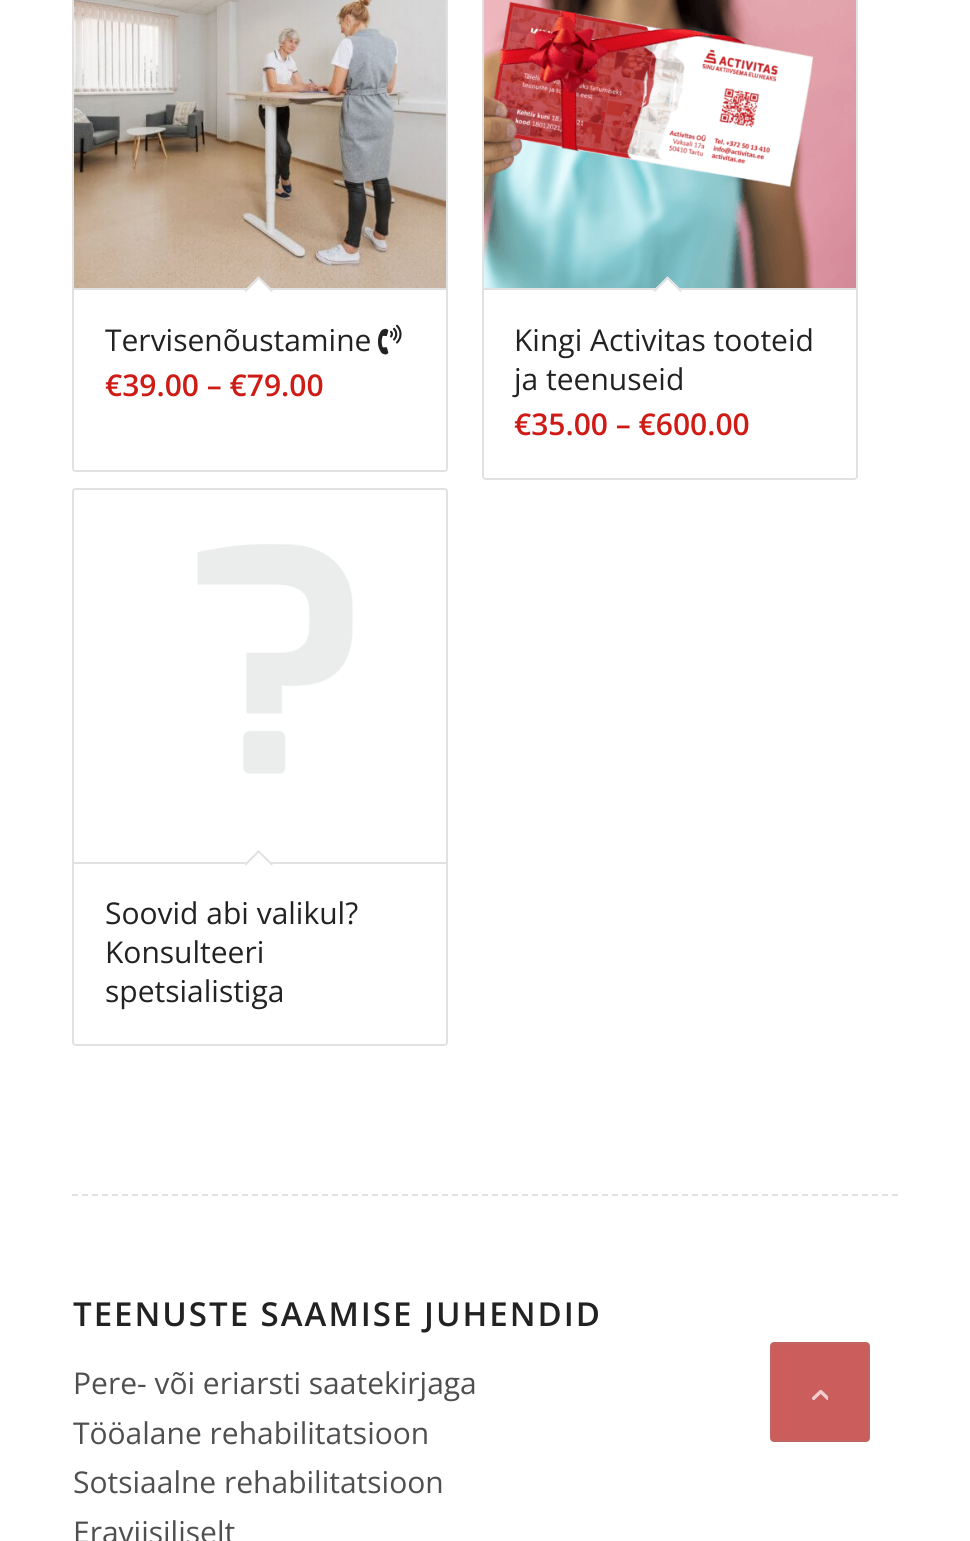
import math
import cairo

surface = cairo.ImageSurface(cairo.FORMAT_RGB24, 970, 1541)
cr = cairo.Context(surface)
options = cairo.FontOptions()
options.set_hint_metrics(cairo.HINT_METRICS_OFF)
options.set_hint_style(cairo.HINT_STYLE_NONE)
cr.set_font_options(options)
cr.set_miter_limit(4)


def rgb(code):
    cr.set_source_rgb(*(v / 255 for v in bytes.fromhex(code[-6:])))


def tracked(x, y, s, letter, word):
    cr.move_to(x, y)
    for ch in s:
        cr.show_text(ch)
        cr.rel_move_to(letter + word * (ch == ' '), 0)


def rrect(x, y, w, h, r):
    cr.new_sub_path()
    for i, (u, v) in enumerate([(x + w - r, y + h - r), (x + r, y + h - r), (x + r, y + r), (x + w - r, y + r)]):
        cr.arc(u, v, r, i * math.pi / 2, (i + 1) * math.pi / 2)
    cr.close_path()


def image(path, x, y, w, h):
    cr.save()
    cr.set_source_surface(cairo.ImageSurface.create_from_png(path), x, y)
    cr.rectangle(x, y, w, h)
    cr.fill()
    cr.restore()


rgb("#ffffff")
cr.paint()
rrect(73, -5, 374, 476, 3)
rgb("#e1e1e1")
cr.stroke()
image("img/1.png", 74, 0, 372, 288)
rgb("#ffffff")
cr.new_path()
cr.move_to(74, 288)
cr.line_to(446, 288)
cr.line_to(446, 468)
cr.curve_to(446, 469, 445, 470, 444, 470)
cr.line_to(76, 470)
cr.curve_to(75, 470, 74, 469, 74, 468)
cr.close_path()
cr.fill()
rgb("#e1e1e1")
cr.rectangle(74, 288, 372, 2)
cr.fill()
rgb("#ffffff")
cr.new_path()
cr.move_to(258.5, 276.5)
cr.line_to(273, 290.5)
cr.line_to(258.5, 304.5)
cr.line_to(244.5, 290.5)
cr.close_path()
cr.fill()
rgb("#e1e1e1")
cr.new_path()
cr.move_to(258.5, 276.5)
cr.line_to(273, 290.5)
cr.line_to(271.5, 292)
cr.line_to(257.5, 278)
cr.close_path()
cr.fill()
cr.new_path()
cr.move_to(258.5, 276.5)
cr.line_to(260, 278)
cr.line_to(246, 292)
cr.line_to(244.5, 290.5)
cr.close_path()
cr.fill()
image("img/2.png", 378, 324, 24, 31)
rrect(483, -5, 374, 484, 3)
cr.stroke()
image("img/3.png", 484, 0, 372, 288)
rgb("#ffffff")
cr.new_path()
cr.move_to(484, 288)
cr.line_to(856, 288)
cr.line_to(856, 476)
cr.curve_to(856, 477, 855, 478, 854, 478)
cr.line_to(486, 478)
cr.curve_to(485, 478, 484, 477, 484, 476)
cr.close_path()
cr.fill()
rgb("#e1e1e1")
cr.rectangle(484, 288, 372, 2)
cr.fill()
rgb("#ffffff")
cr.new_path()
cr.move_to(667.5, 276.5)
cr.line_to(682, 290.5)
cr.line_to(667.5, 304.5)
cr.line_to(653.5, 290.5)
cr.close_path()
cr.fill()
rgb("#e1e1e1")
cr.new_path()
cr.move_to(667.5, 276.5)
cr.line_to(682, 290.5)
cr.line_to(680.5, 292)
cr.line_to(666, 278)
cr.close_path()
cr.fill()
cr.new_path()
cr.move_to(667.5, 276.5)
cr.line_to(669, 278)
cr.line_to(655, 292)
cr.line_to(653.5, 290.5)
cr.close_path()
cr.fill()
rrect(73, 489, 374, 556, 3)
cr.stroke()
image("img/4.png", 197, 544, 156, 230)
rgb("#ffffff")
cr.new_path()
cr.move_to(74, 862)
cr.line_to(446, 862)
cr.line_to(446, 1042)
cr.curve_to(446, 1043, 445, 1044, 444, 1044)
cr.line_to(76, 1044)
cr.curve_to(75, 1044, 74, 1043, 74, 1042)
cr.close_path()
cr.fill()
rgb("#e1e1e1")
cr.rectangle(74, 862, 372, 2)
cr.fill()
rgb("#ffffff")
cr.new_path()
cr.move_to(258.5, 850)
cr.line_to(273, 864)
cr.line_to(258.5, 878.5)
cr.line_to(244.5, 864)
cr.close_path()
cr.fill()
rgb("#e1e1e1")
cr.new_path()
cr.move_to(258.5, 850)
cr.line_to(273, 864)
cr.line_to(271.5, 865.5)
cr.line_to(257.5, 851.5)
cr.close_path()
cr.fill()
cr.new_path()
cr.move_to(258.5, 850)
cr.line_to(260, 851.5)
cr.line_to(246, 865.5)
cr.line_to(244.5, 864)
cr.close_path()
cr.fill()
cr.new_path()
cr.move_to(72, 1195)
cr.line_to(898, 1195)
cr.set_dash([6, 4])
cr.stroke()
rgb("#cb5e5d")
rrect(771, 1343, 98, 98, 3)
cr.fill_preserve()
rgb("#c16462")
cr.set_dash([])
cr.stroke()
image("img/5.png", 812, 1389, 16, 12)
cr.select_font_face("Open Sans")
cr.set_font_size(30)
rgb("#222222")
cr.move_to(105, 351)
cr.show_text("Tervisenõustamine")
cr.select_font_face("Open Sans SemiBold")
rgb("#cf1b15")
cr.move_to(105, 396)
cr.show_text("€39.00 – €79.00")
cr.select_font_face("Open Sans")
rgb("#222222")
cr.move_to(514, 351)
cr.show_text("Kingi Activitas tooteid")
cr.move_to(514, 390)
cr.show_text("ja teenuseid")
cr.select_font_face("Open Sans SemiBold")
rgb("#cf1b15")
cr.move_to(514, 435)
cr.show_text("€35.00 – €600.00")
cr.select_font_face("Open Sans")
rgb("#222222")
for x, y, s in [
    (105, 924, "Soovid abi valikul?"),
    (105, 963, "Konsulteeri"),
    (105, 1002, "spetsialistiga"),
]:
    cr.move_to(x, y)
    cr.show_text(s)
cr.select_font_face("Open Sans SemiBold")
cr.set_font_size(33)
tracked(73, 1326, "TEENUSTE SAAMISE JUHENDID", 2, 0)
cr.select_font_face("Open Sans")
cr.set_font_size(30)
rgb("#4f4f4f")
for x, y, s in [
    (73, 1394, "Pere- või eriarsti saatekirjaga"),
    (73, 1444, "Tööalane rehabilitatsioon"),
    (73, 1493, "Sotsiaalne rehabilitatsioon"),
    (73, 1543, "Eraviisiliselt"),
]:
    cr.move_to(x, y)
    cr.show_text(s)
surface.write_to_png("page.png")
